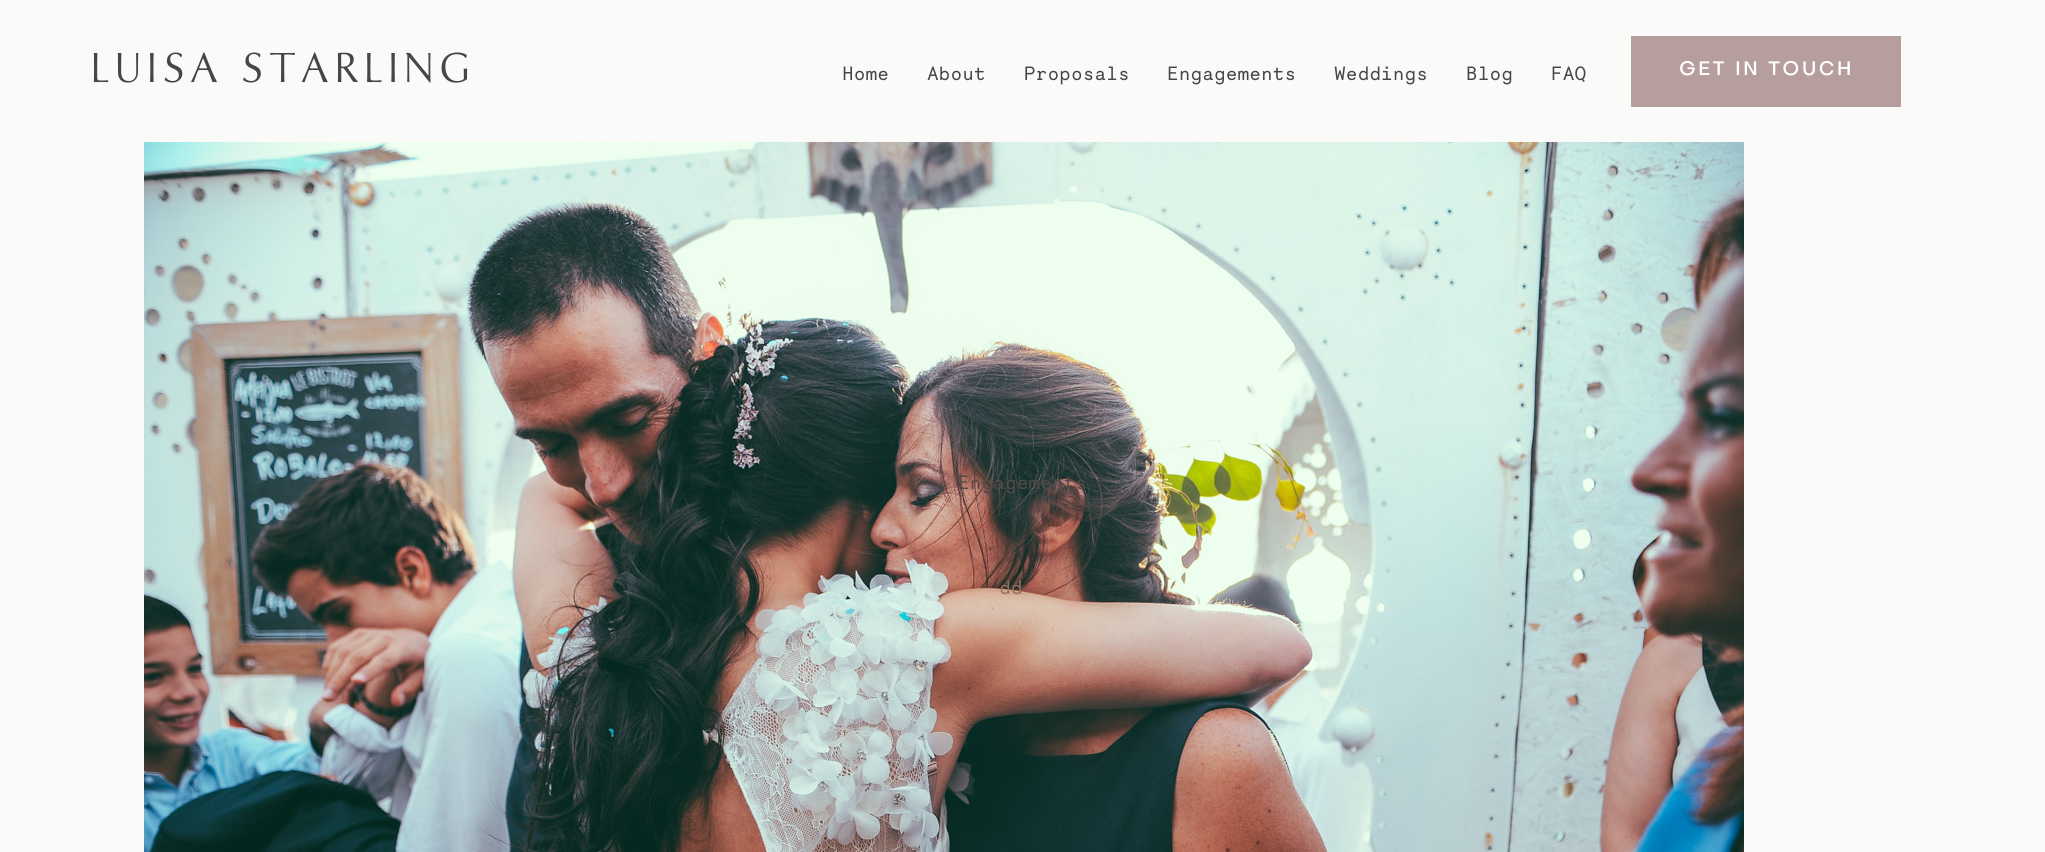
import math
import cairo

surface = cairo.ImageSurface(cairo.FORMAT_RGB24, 2045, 852)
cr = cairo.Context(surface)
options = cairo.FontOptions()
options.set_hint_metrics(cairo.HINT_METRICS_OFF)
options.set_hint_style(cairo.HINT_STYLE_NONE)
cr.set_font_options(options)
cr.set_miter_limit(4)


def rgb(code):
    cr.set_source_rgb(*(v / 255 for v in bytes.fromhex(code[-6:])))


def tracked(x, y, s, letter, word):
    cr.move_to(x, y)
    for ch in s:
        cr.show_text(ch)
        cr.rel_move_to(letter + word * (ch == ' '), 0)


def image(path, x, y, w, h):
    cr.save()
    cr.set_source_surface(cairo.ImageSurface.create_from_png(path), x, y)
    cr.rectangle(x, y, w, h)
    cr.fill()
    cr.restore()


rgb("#fafaf8")
cr.paint()
rgb("#b79e9e")
cr.rectangle(1631, 36, 270, 71)
cr.fill()
image("img/1.png", 144, 142, 1600, 710)
cr.select_font_face("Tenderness")
cr.set_font_size(44.75)
rgb("#464646")
tracked(91, 82, "LUISA STARLING", 6.75, 0)
cr.select_font_face("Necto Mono")
cr.set_font_size(19.25)
for x, y, s in [
    (842, 80, "Home"),
    (927, 80, "About"),
    (1024, 80, "Proposals"),
    (1167, 80, "Engagements"),
    (1334, 80, "Weddings"),
    (1466, 80, "Blog"),
    (1551, 80, "FAQ"),
]:
    cr.move_to(x, y)
    cr.show_text(s)
cr.select_font_face("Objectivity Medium")
rgb("#ffffff")
tracked(1679, 75, "GET IN TOUCH", 2.25, 0)
cr.select_font_face("Necto Mono")
rgb("#524a46")
cr.move_to(958, 489)
cr.show_text("Engagements")
rgb("#9c6e5e")
cr.move_to(999, 594)
cr.show_text("dd")
surface.write_to_png("page.png")
